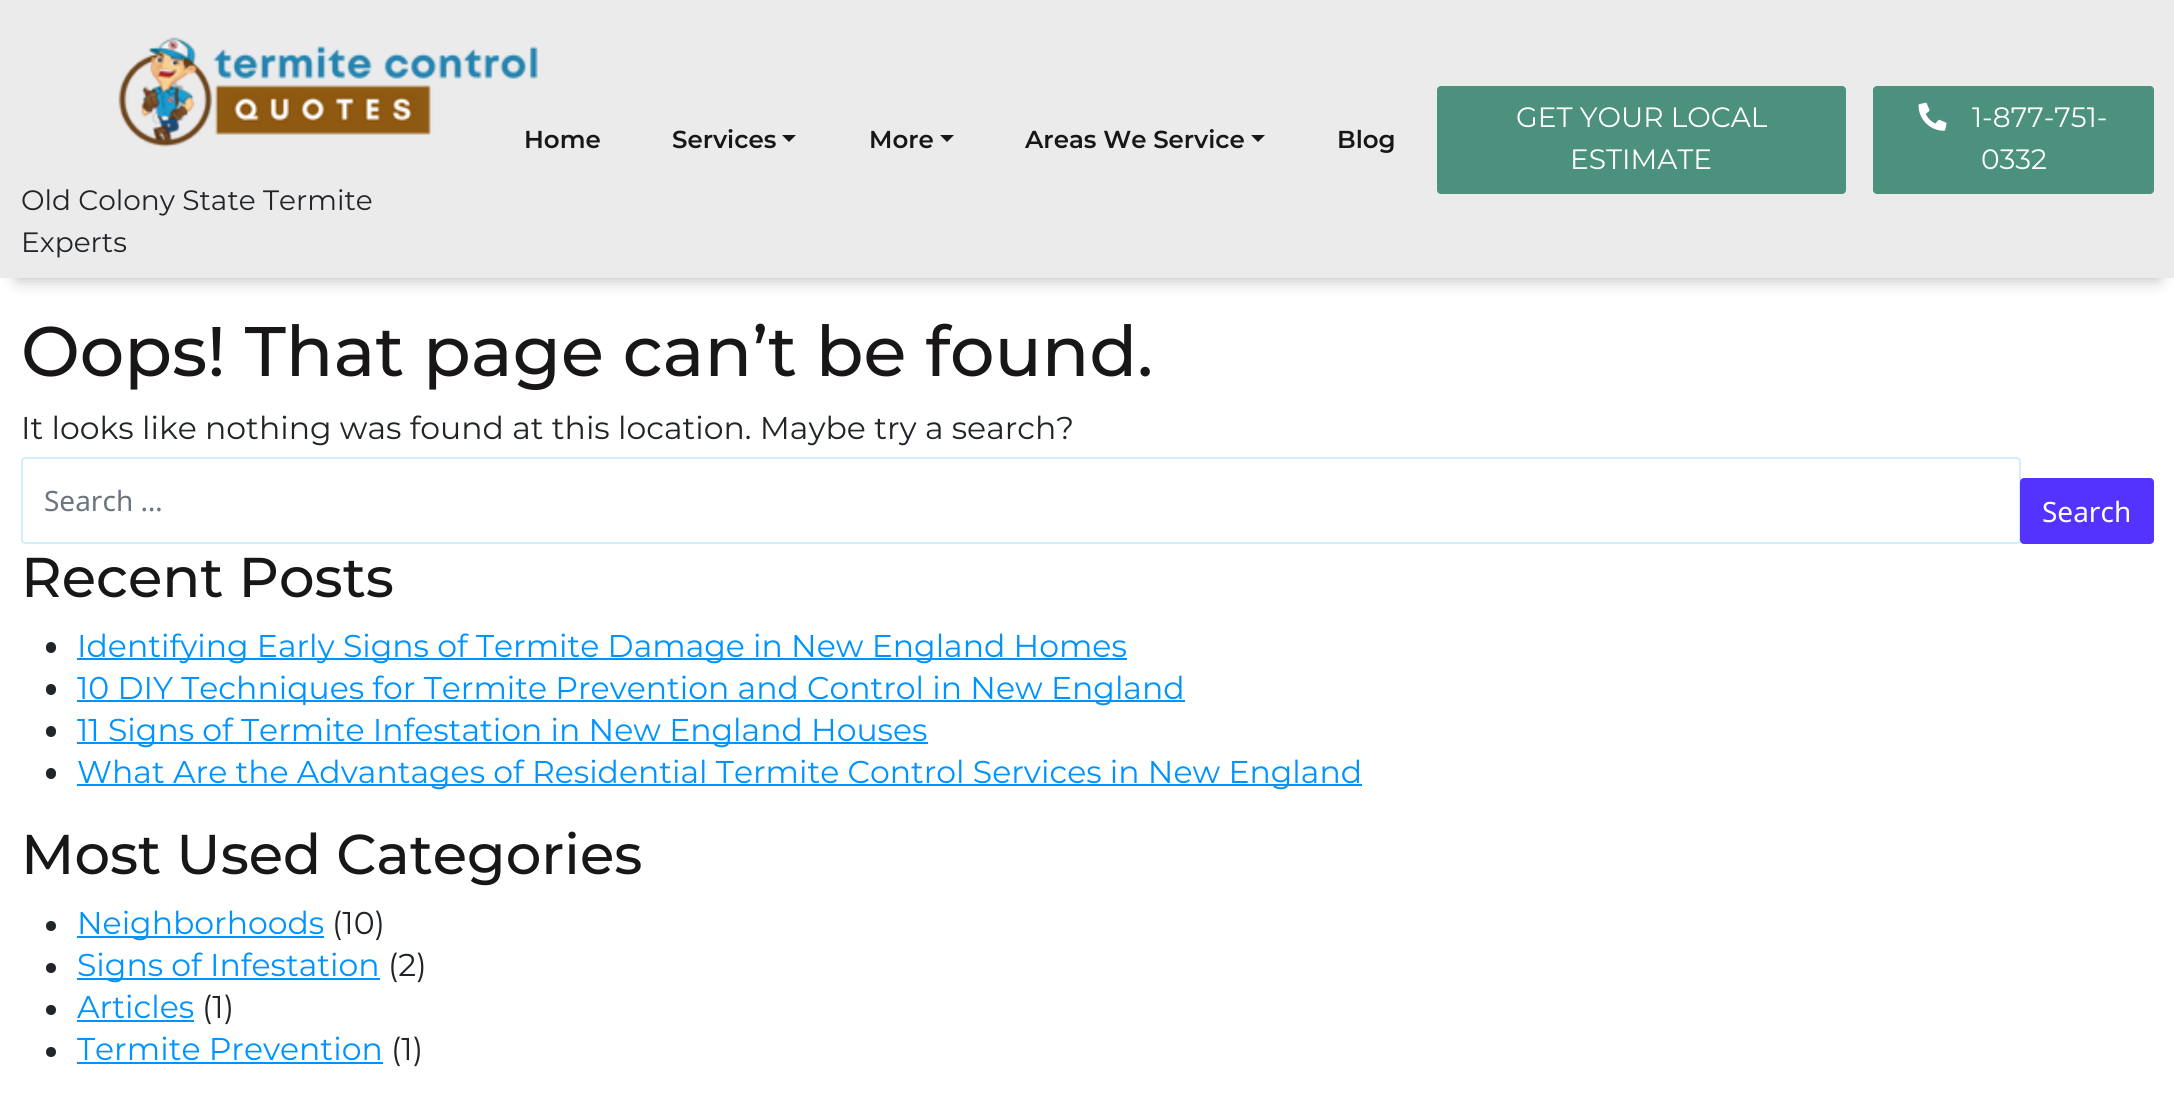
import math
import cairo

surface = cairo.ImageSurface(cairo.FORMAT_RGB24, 2174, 1097)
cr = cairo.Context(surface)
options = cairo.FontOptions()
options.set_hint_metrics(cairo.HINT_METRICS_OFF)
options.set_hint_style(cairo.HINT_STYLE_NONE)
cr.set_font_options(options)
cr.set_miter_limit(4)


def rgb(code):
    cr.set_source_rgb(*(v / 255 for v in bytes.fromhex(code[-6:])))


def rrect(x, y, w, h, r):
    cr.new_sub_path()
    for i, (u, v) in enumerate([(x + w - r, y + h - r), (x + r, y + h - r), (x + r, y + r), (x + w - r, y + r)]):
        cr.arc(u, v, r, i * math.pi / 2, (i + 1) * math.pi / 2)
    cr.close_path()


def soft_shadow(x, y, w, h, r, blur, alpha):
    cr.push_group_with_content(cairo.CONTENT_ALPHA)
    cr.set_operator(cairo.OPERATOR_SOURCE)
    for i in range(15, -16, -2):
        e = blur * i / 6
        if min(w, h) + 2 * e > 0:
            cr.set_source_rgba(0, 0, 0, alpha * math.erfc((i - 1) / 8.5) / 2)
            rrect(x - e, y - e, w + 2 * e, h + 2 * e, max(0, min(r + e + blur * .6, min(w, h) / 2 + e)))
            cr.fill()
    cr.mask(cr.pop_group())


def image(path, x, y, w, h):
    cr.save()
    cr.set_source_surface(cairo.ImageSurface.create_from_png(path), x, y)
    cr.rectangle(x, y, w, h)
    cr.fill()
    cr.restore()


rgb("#ffffff")
cr.paint()
rgb("#111111")
soft_shadow(18, 35, 2140, 243, 0, 9, 0.33)
rgb("#ebebeb")
cr.rectangle(0, 0, 2174, 278)
cr.fill()
rgb("#181617")
cr.new_path()
cr.move_to(782, 135)
cr.line_to(796, 135)
cr.line_to(789, 142)
cr.close_path()
cr.fill()
cr.new_path()
cr.move_to(940, 135)
cr.line_to(954, 135)
cr.line_to(947, 142)
cr.close_path()
cr.fill()
cr.new_path()
cr.move_to(1251, 135)
cr.line_to(1265, 135)
cr.line_to(1258, 142)
cr.close_path()
cr.fill()
rgb("#4b917d")
rrect(1437, 86, 409, 108, 4)
cr.fill()
rrect(1873, 86, 281, 108, 4)
cr.fill()
image("img/1.png", 1918, 102, 29, 29)
image("img/2.png", 118, 37, 420, 110)
rrect(22, 458, 1998, 85, 3)
rgb("#d4eef9")
cr.stroke()
rgb("#5533ff")
rrect(2021, 479, 132, 64, 3)
cr.fill_preserve()
cr.stroke()
rgb("#212529")
rrect(46, 642, 10, 11, 5)
cr.fill()
rgb("#0093ff")
cr.rectangle(77, 658, 1050, 2)
cr.fill()
rgb("#212529")
rrect(46, 684, 10, 11, 5)
cr.fill()
rgb("#0093ff")
cr.rectangle(77, 700, 1108, 2)
cr.fill()
rgb("#212529")
rrect(46, 726, 10, 11, 5)
cr.fill()
rgb("#0093ff")
cr.rectangle(77, 742, 851, 2)
cr.fill()
rgb("#212529")
rrect(46, 768, 10, 11, 5)
cr.fill()
rgb("#0093ff")
cr.rectangle(77, 784, 1285, 2)
cr.fill()
rgb("#212529")
cr.arc(51, 926, 5, 0, 2 * math.pi)
cr.fill()
rgb("#0093ff")
cr.rectangle(77, 936, 247, 2)
cr.fill()
rgb("#212529")
cr.arc(51, 968, 5, 0, 2 * math.pi)
cr.fill()
rgb("#0093ff")
cr.rectangle(77, 978, 303, 2)
cr.fill()
rgb("#212529")
cr.arc(51, 1010, 5, 0, 2 * math.pi)
cr.fill()
rgb("#0093ff")
cr.rectangle(77, 1020, 117, 2)
cr.fill()
rgb("#212529")
cr.arc(51, 1052, 5, 0, 2 * math.pi)
cr.fill()
rgb("#0093ff")
cr.rectangle(77, 1062, 306, 2)
cr.fill()
cr.select_font_face("Montserrat SemiBold")
cr.set_font_size(24.5)
rgb("#181617")
for x, y, s in [
    (524, 148, "Home"),
    (672, 148, "Services"),
    (869, 148, "More"),
    (1025, 148, "Areas We Service"),
    (1337, 148, "Blog"),
]:
    cr.move_to(x, y)
    cr.show_text(s)
cr.select_font_face("Montserrat")
cr.set_font_size(28)
rgb("#ffffff")
for x, y, s in [
    (1516, 127, "GET YOUR LOCAL"),
    (1570, 169, "ESTIMATE"),
    (1972, 127, "1-877-751-"),
    (1981, 169, "0332"),
]:
    cr.move_to(x, y)
    cr.show_text(s)
rgb("#212529")
cr.move_to(21, 210)
cr.show_text("Old Colony State Termite")
cr.move_to(21, 252)
cr.show_text("Experts")
cr.select_font_face("Montserrat Medium")
cr.set_font_size(70)
rgb("#181617")
cr.move_to(21, 376)
cr.show_text("Oops! That page can’t be found.")
cr.select_font_face("Montserrat")
cr.set_font_size(31.5)
rgb("#212529")
cr.move_to(21, 439)
cr.show_text("It looks like nothing was found at this location. Maybe try a search?")
cr.select_font_face("Noto Sans")
cr.set_font_size(28)
rgb("#6c757d")
cr.move_to(44, 511)
cr.show_text("Search …")
rgb("#ffffff")
cr.move_to(2042, 522)
cr.show_text("Search")
cr.select_font_face("Montserrat Medium")
cr.set_font_size(56)
rgb("#181617")
cr.move_to(21, 597)
cr.show_text("Recent Posts")
cr.select_font_face("Montserrat")
cr.set_font_size(31.5)
rgb("#0093ff")
for x, y, s in [
    (77, 657, "Identifying Early Signs of Termite Damage in New England Homes"),
    (77, 699, "10 DIY Techniques for Termite Prevention and Control in New England"),
    (77, 741, "11 Signs of Termite Infestation in New England Houses"),
    (77, 783, "What Are the Advantages of Residential Termite Control Services in New England"),
]:
    cr.move_to(x, y)
    cr.show_text(s)
cr.select_font_face("Montserrat Medium")
cr.set_font_size(56)
rgb("#181617")
cr.move_to(21, 874)
cr.show_text("Most Used Categories")
cr.select_font_face("Montserrat")
cr.set_font_size(31.5)
rgb("#0093ff")
cr.move_to(77, 934)
cr.show_text("Neighborhoods")
rgb("#212529")
cr.move_to(332, 934)
cr.show_text("(10)")
rgb("#0093ff")
cr.move_to(77, 976)
cr.show_text("Signs of Infestation")
rgb("#212529")
cr.move_to(388, 976)
cr.show_text("(2)")
rgb("#0093ff")
cr.move_to(77, 1018)
cr.show_text("Articles")
rgb("#212529")
cr.move_to(202, 1018)
cr.show_text("(1)")
rgb("#0093ff")
cr.move_to(77, 1060)
cr.show_text("Termite Prevention")
rgb("#212529")
cr.move_to(391, 1060)
cr.show_text("(1)")
surface.write_to_png("page.png")
